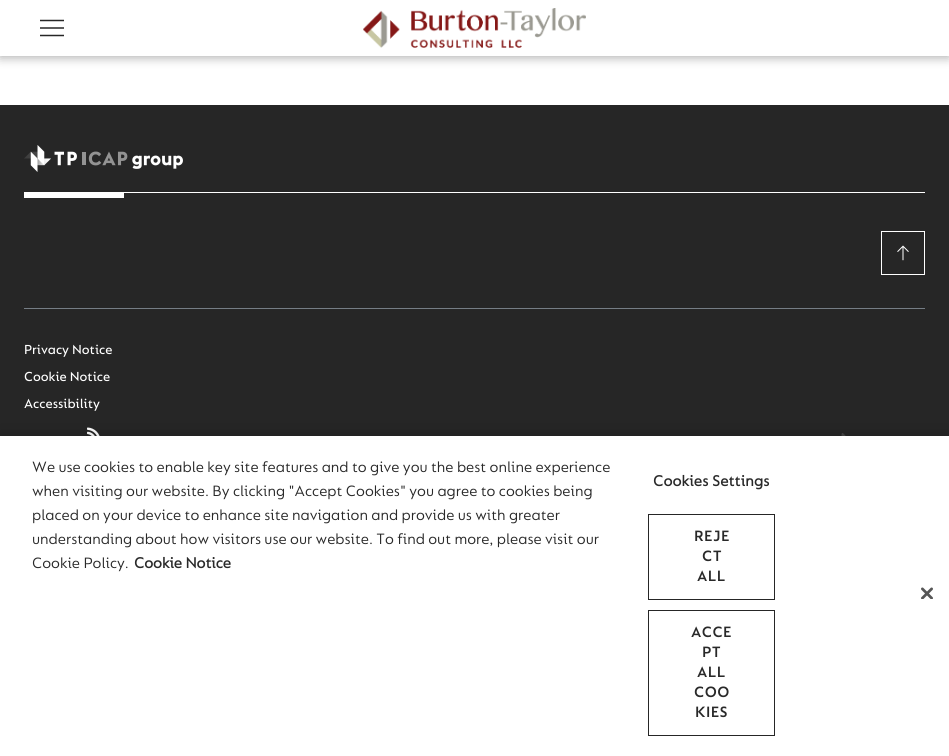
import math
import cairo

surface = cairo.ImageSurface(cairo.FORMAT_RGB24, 949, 756)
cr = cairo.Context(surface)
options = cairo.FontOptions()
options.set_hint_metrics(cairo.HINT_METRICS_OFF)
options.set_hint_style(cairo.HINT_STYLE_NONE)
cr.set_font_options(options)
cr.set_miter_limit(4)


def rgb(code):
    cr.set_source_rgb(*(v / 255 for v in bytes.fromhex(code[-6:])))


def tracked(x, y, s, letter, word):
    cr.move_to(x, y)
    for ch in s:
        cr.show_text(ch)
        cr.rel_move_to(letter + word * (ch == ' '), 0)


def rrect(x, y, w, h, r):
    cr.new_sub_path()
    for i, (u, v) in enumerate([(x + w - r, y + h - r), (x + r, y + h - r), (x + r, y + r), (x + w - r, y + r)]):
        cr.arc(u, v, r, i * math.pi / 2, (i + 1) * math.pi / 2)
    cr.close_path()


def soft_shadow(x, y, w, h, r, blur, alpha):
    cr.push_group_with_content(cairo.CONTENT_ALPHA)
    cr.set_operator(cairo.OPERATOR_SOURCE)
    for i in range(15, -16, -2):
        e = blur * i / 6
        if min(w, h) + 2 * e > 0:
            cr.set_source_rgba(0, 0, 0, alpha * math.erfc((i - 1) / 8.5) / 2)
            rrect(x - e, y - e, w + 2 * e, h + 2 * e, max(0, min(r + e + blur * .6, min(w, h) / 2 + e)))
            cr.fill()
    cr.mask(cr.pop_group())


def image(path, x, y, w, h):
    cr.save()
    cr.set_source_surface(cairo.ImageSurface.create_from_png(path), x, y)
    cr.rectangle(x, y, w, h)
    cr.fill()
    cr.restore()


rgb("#ffffff")
cr.paint()
rgb("#000000")
soft_shadow(0, 2, 949, 56, 0, 5, 0.3)
rgb("#ffffff")
cr.rectangle(0, 0, 949, 56)
cr.fill()
image("img/1.png", 40, 19, 24, 18)
image("img/2.png", 363, 8, 223, 40)
rgb("#262626")
cr.rectangle(0, 105, 949, 331)
cr.fill()
image("img/3.png", 841, 433, 5, 3)
image("img/4.png", 24, 145, 159, 27)
rgb("#ffffff")
cr.rectangle(24, 192, 901, 1)
cr.fill()
cr.rectangle(24, 193, 100, 5)
cr.fill()
cr.rectangle(881.5, 231.5, 43, 43)
cr.set_line_width(1)
cr.stroke()
image("img/5.png", 897, 245, 12, 16)
rgb("#757d85")
cr.rectangle(24, 308, 901, 1)
cr.fill()
image("img/6.png", 87, 427, 13, 9)
rgb("#000000")
soft_shadow(0, 436, 949, 320, 0, 9, 0.2)
rgb("#ffffff")
cr.rectangle(0, 436, 949, 320)
cr.fill()
cr.rectangle(648.5, 514.5, 126, 85)
rgb("#262626")
cr.stroke()
cr.rectangle(648.5, 610.5, 126, 125)
cr.stroke()
image("img/7.png", 921, 587, 12, 12)
cr.select_font_face("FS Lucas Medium")
cr.set_font_size(14)
rgb("#ffffff")
for x, y, s in [
    (24, 354, "Privacy Notice"),
    (24, 381, "Cookie Notice"),
    (24, 408, "Accessibility"),
]:
    cr.move_to(x, y)
    cr.show_text(s)
cr.select_font_face("FS Lucas")
cr.set_font_size(16)
rgb("#292929")
for x, y, s in [
    (32, 472, "We use cookies to enable key site features and to give you the best online experience"),
    (32, 496, "when visiting our website. By clicking \"Accept Cookies\" you agree to cookies being"),
    (32, 520, "placed on your device to enhance site navigation and provide us with greater"),
    (32, 544, "understanding about how visitors use our website. To find out more, please visit our"),
    (32, 568, "Cookie Policy."),
]:
    cr.move_to(x, y)
    cr.show_text(s)
cr.select_font_face("FS Lucas", cairo.FONT_SLANT_NORMAL, cairo.FONT_WEIGHT_BOLD)
cr.move_to(134, 568)
cr.show_text("Cookie Notice")
tracked(653, 486, "Cookies Settings", 0.2, 0)
cr.select_font_face("FS Lucas SemiBold")
for x, y, s in [
    (694, 541, "REJE"),
    (702, 561, "CT"),
    (697, 581, "ALL"),
    (691, 637, "ACCE"),
    (702, 657, "PT"),
    (697, 677, "ALL"),
    (694, 697, "COO"),
    (695, 717, "KIES"),
]:
    tracked(x, y, s, 0.5, 0)
surface.write_to_png("page.png")
